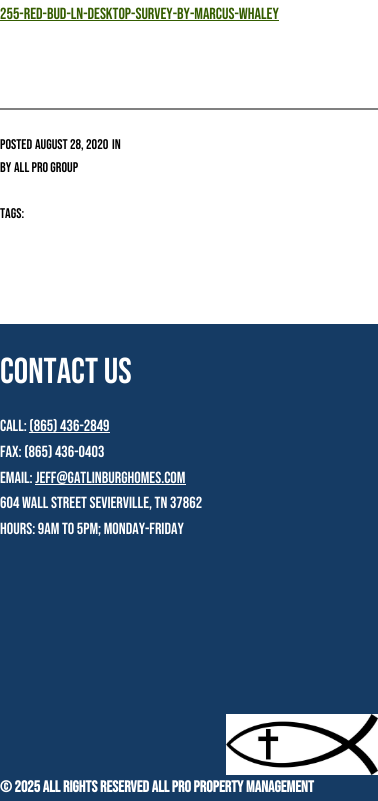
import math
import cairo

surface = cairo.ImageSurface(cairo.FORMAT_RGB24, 378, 801)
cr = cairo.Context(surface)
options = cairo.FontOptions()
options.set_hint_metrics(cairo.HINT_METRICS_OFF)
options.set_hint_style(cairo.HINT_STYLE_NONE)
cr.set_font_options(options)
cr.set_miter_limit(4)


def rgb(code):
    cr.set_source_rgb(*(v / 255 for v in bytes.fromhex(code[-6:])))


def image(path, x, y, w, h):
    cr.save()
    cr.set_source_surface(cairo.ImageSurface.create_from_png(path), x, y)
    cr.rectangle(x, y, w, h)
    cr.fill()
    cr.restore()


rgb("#ffffff")
cr.paint()
for x, y, w, h, color in [
    (0, 20, 279, 1, "#345c00"),
    (0, 108, 378, 2, "#808080"),
    (0, 324, 378, 477, "#153b64"),
    (29, 432, 81, 1, "#ffffff"),
    (35, 484, 151, 1, "#ffffff"),
]:
    rgb(color)
    cr.rectangle(x, y, w, h)
    cr.fill()
image("img/1.png", 226, 714, 152, 61)
cr.select_font_face("Bebas Neue")
cr.set_font_size(16.1)
rgb("#345c00")
cr.move_to(0, 19)
cr.show_text("255-Red-Bud-Ln-Desktop-Survey-by-Marcus-Whaley")
cr.set_font_size(14)
rgb("#000000")
for x, y, s in [
    (0, 149, "Posted"),
    (35, 149, "August 28, 2020"),
    (112, 149, "in"),
    (0, 172, "by"),
    (14, 172, "All Pro Group"),
    (0, 218, "Tags:"),
]:
    cr.move_to(x, y)
    cr.show_text(s)
cr.set_font_size(36)
rgb("#ffffff")
cr.move_to(0, 383)
cr.show_text("Contact Us")
cr.set_font_size(16.1)
for x, y, s in [
    (0, 431, "Call: (865) 436-2849"),
    (0, 457, "Fax: (865) 436-0403"),
    (0, 483, "Email: jeff@gatlinburghomes.com"),
    (0, 508, "604 Wall Street Sevierville, TN 37862"),
    (0, 534, "Hours: 9am to 5pm; Monday-Friday"),
]:
    cr.move_to(x, y)
    cr.show_text(s)
cr.select_font_face("Bebas Neue", cairo.FONT_SLANT_NORMAL, cairo.FONT_WEIGHT_BOLD)
cr.move_to(0, 792)
cr.show_text("© 2025 All Rights Reserved All Pro Property Management")
surface.write_to_png("page.png")
